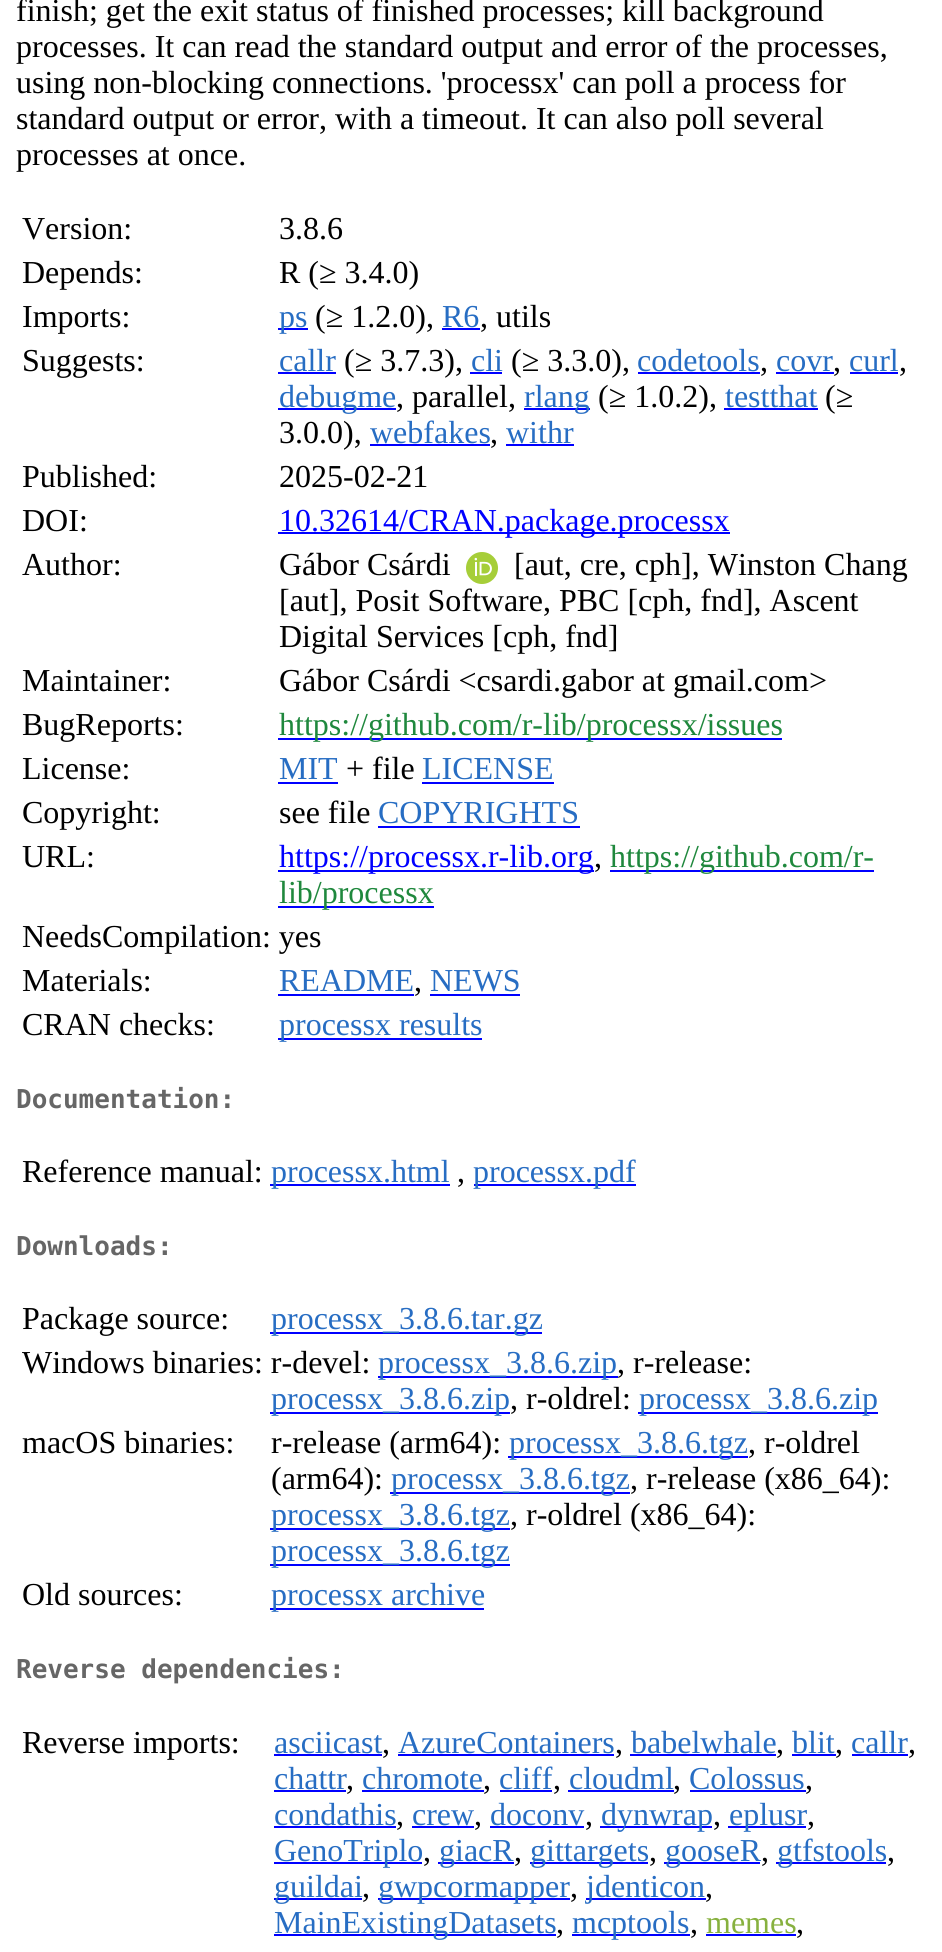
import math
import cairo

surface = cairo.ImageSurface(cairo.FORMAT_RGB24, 942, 1952)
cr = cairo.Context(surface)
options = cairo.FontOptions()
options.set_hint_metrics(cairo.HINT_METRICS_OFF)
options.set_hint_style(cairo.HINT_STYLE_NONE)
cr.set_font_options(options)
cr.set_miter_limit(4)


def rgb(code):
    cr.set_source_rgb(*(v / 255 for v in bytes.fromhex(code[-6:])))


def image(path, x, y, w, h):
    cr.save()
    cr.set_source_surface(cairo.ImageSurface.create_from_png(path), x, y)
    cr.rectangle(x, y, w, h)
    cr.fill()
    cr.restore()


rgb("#ffffff")
cr.paint()
for x, y, w, h, color in [
    (278, 328, 30, 2, "#0000ff"),
    (442, 328, 38, 2, "#0000ff"),
    (278, 372, 58, 2, "#0000ff"),
    (470, 372, 32, 2, "#0000ff"),
    (638, 372, 122, 2, "#0000ff"),
    (776, 372, 58, 2, "#0000ff"),
    (850, 372, 48, 2, "#0000ff"),
    (278, 408, 118, 2, "#0000ff"),
    (524, 408, 66, 2, "#0000ff"),
    (724, 408, 94, 2, "#0000ff"),
    (370, 444, 120, 2, "#0000ff"),
    (506, 444, 68, 2, "#0000ff"),
    (278, 532, 452, 2, "#0000ff"),
]:
    rgb(color)
    cr.rectangle(x, y, w, h)
    cr.fill()
image("img/1.png", 466, 552, 32, 32)
for x, y, w, h, color in [
    (278, 738, 504, 2, "#0000ff"),
    (278, 782, 60, 2, "#0000ff"),
    (422, 782, 132, 2, "#0000ff"),
    (378, 826, 202, 2, "#0000ff"),
    (278, 870, 316, 2, "#0000ff"),
    (610, 870, 264, 2, "#0000ff"),
    (278, 906, 156, 2, "#0000ff"),
    (278, 994, 136, 2, "#0000ff"),
    (430, 994, 90, 2, "#0000ff"),
    (278, 1038, 204, 2, "#0000ff"),
    (270, 1184, 180, 2, "#0000ff"),
    (474, 1184, 162, 2, "#0000ff"),
    (270, 1332, 272, 2, "#0000ff"),
    (378, 1376, 240, 2, "#0000ff"),
    (270, 1412, 240, 2, "#0000ff"),
    (638, 1412, 240, 2, "#0000ff"),
    (508, 1456, 240, 2, "#0000ff"),
    (390, 1492, 240, 2, "#0000ff"),
    (270, 1528, 240, 2, "#0000ff"),
    (270, 1564, 240, 2, "#0000ff"),
    (270, 1608, 214, 2, "#0000ff"),
    (274, 1754, 108, 2, "#0000ff"),
    (398, 1754, 216, 2, "#0000ff"),
    (630, 1754, 146, 2, "#0000ff"),
    (792, 1754, 44, 2, "#0000ff"),
    (852, 1754, 56, 2, "#0000ff"),
    (274, 1790, 72, 2, "#0000ff"),
    (362, 1790, 122, 2, "#0000ff"),
    (500, 1790, 52, 2, "#0000ff"),
    (568, 1790, 106, 2, "#0000ff"),
    (690, 1790, 116, 2, "#0000ff"),
    (274, 1826, 122, 2, "#0000ff"),
    (412, 1826, 62, 2, "#0000ff"),
    (490, 1826, 94, 2, "#0000ff"),
    (600, 1826, 112, 2, "#0000ff"),
    (728, 1826, 78, 2, "#0000ff"),
    (274, 1862, 148, 2, "#0000ff"),
    (438, 1862, 76, 2, "#0000ff"),
    (530, 1862, 118, 2, "#0000ff"),
    (664, 1862, 96, 2, "#0000ff"),
    (776, 1862, 110, 2, "#0000ff"),
    (274, 1898, 88, 2, "#0000ff"),
    (378, 1898, 192, 2, "#0000ff"),
    (586, 1898, 120, 2, "#0000ff"),
    (274, 1934, 282, 2, "#0000ff"),
    (572, 1934, 118, 2, "#0000ff"),
    (706, 1934, 90, 2, "#0000ff"),
]:
    rgb(color)
    cr.rectangle(x, y, w, h)
    cr.fill()
cr.select_font_face("Liberation Serif")
cr.set_font_size(32)
rgb("#000000")
for x, y, s in [
    (16, 21, "finish; get the exit status of finished processes; kill background"),
    (16, 57, "processes. It can read the standard output and error of the processes,"),
    (16, 93, "using non-blocking connections. 'processx' can poll a process for"),
    (16, 129, "standard output or error, with a timeout. It can also poll several"),
    (16, 165, "processes at once."),
    (22, 239, "Version:"),
    (279, 239, "3.8.6"),
    (22, 283, "Depends:"),
    (279, 283, "R (≥ 3.4.0)"),
    (22, 327, "Imports:"),
]:
    cr.move_to(x, y)
    cr.show_text(s)
rgb("#276dc3")
cr.move_to(279, 327)
cr.show_text("ps")
rgb("#000000")
cr.move_to(315, 327)
cr.show_text("(≥ 1.2.0),")
rgb("#276dc3")
cr.move_to(442, 327)
cr.show_text("R6")
rgb("#000000")
cr.move_to(480, 327)
cr.show_text(", utils")
cr.move_to(22, 371)
cr.show_text("Suggests:")
rgb("#276dc3")
cr.move_to(279, 371)
cr.show_text("callr")
rgb("#000000")
cr.move_to(344, 371)
cr.show_text("(≥ 3.7.3),")
rgb("#276dc3")
cr.move_to(471, 371)
cr.show_text("cli")
rgb("#000000")
cr.move_to(511, 371)
cr.show_text("(≥ 3.3.0),")
rgb("#276dc3")
cr.move_to(637, 371)
cr.show_text("codetools")
rgb("#000000")
cr.move_to(760, 371)
cr.show_text(",")
rgb("#276dc3")
cr.move_to(776, 371)
cr.show_text("covr")
rgb("#000000")
cr.move_to(833, 371)
cr.show_text(",")
rgb("#276dc3")
cr.move_to(849, 371)
cr.show_text("curl")
rgb("#000000")
cr.move_to(899, 371)
cr.show_text(",")
rgb("#276dc3")
cr.move_to(279, 407)
cr.show_text("debugme")
rgb("#000000")
cr.move_to(396, 407)
cr.show_text(", parallel,")
rgb("#276dc3")
cr.move_to(524, 407)
cr.show_text("rlang")
rgb("#000000")
cr.move_to(598, 407)
cr.show_text("(≥ 1.0.2),")
rgb("#276dc3")
cr.move_to(725, 407)
cr.show_text("testthat")
rgb("#000000")
cr.move_to(825, 407)
cr.show_text("(≥")
cr.move_to(279, 443)
cr.show_text("3.0.0),")
rgb("#276dc3")
cr.move_to(370, 443)
cr.show_text("webfakes")
rgb("#000000")
cr.move_to(490, 443)
cr.show_text(",")
rgb("#276dc3")
cr.move_to(506, 443)
cr.show_text("withr")
rgb("#000000")
for x, y, s in [
    (22, 487, "Published:"),
    (279, 487, "2025-02-21"),
    (22, 531, "DOI:"),
]:
    cr.move_to(x, y)
    cr.show_text(s)
rgb("#0000ff")
cr.move_to(279, 531)
cr.show_text("10.32614/CRAN.package.processx")
rgb("#000000")
for x, y, s in [
    (22, 575, "Author:"),
    (279, 575, "Gábor Csárdi"),
    (514, 575, "[aut, cre, cph], Winston Chang"),
    (279, 611, "[aut], Posit Software, PBC [cph, fnd], Ascent"),
    (279, 647, "Digital Services [cph, fnd]"),
    (22, 691, "Maintainer:"),
    (279, 691, "Gábor Csárdi <csardi.gabor at gmail.com>"),
    (22, 735, "BugReports:"),
]:
    cr.move_to(x, y)
    cr.show_text(s)
rgb("#1f883d")
cr.move_to(279, 735)
cr.show_text("https://github.com/r-lib/processx/issues")
rgb("#000000")
cr.move_to(22, 779)
cr.show_text("License:")
rgb("#276dc3")
cr.move_to(279, 779)
cr.show_text("MIT")
rgb("#000000")
cr.move_to(346, 779)
cr.show_text("+ file")
rgb("#276dc3")
cr.move_to(422, 779)
cr.show_text("LICENSE")
rgb("#000000")
cr.move_to(22, 823)
cr.show_text("Copyright:")
cr.move_to(279, 823)
cr.show_text("see file")
rgb("#276dc3")
cr.move_to(378, 823)
cr.show_text("COPYRIGHTS")
rgb("#000000")
cr.move_to(22, 867)
cr.show_text("URL:")
rgb("#0000ff")
cr.move_to(279, 867)
cr.show_text("https://processx.r-lib.org")
rgb("#000000")
cr.move_to(594, 867)
cr.show_text(",")
rgb("#1f883d")
cr.move_to(610, 867)
cr.show_text("https://github.com/r-")
cr.move_to(279, 903)
cr.show_text("lib/processx")
rgb("#000000")
cr.move_to(22, 947)
cr.show_text("NeedsCompilation: yes")
cr.move_to(22, 991)
cr.show_text("Materials:")
rgb("#276dc3")
cr.move_to(279, 991)
cr.show_text("README")
rgb("#000000")
cr.move_to(414, 991)
cr.show_text(",")
rgb("#276dc3")
cr.move_to(430, 991)
cr.show_text("NEWS")
rgb("#000000")
cr.move_to(22, 1035)
cr.show_text("CRAN checks:")
rgb("#276dc3")
cr.move_to(279, 1035)
cr.show_text("processx results")
cr.select_font_face("DejaVu Sans Mono", cairo.FONT_SLANT_NORMAL, cairo.FONT_WEIGHT_BOLD)
cr.set_font_size(26)
rgb("#666666")
cr.move_to(16, 1108)
cr.show_text("Documentation:")
cr.select_font_face("Liberation Serif")
cr.set_font_size(32)
rgb("#000000")
cr.move_to(22, 1182)
cr.show_text("Reference manual:")
rgb("#276dc3")
cr.move_to(271, 1182)
cr.show_text("processx.html")
rgb("#000000")
cr.move_to(457, 1182)
cr.show_text(",")
rgb("#276dc3")
cr.move_to(473, 1182)
cr.show_text("processx.pdf")
cr.select_font_face("DejaVu Sans Mono", cairo.FONT_SLANT_NORMAL, cairo.FONT_WEIGHT_BOLD)
cr.set_font_size(26)
rgb("#666666")
cr.move_to(16, 1255)
cr.show_text("Downloads:")
cr.select_font_face("Liberation Serif")
cr.set_font_size(32)
rgb("#000000")
cr.move_to(22, 1329)
cr.show_text("Package source:")
rgb("#276dc3")
cr.move_to(271, 1329)
cr.show_text("processx_3.8.6.tar.gz")
rgb("#000000")
cr.move_to(22, 1373)
cr.show_text("Windows binaries: r-devel:")
rgb("#276dc3")
cr.move_to(378, 1373)
cr.show_text("processx_3.8.6.zip")
rgb("#000000")
cr.move_to(617, 1373)
cr.show_text(", r-release:")
rgb("#276dc3")
cr.move_to(271, 1409)
cr.show_text("processx_3.8.6.zip")
rgb("#000000")
cr.move_to(510, 1409)
cr.show_text(", r-oldrel:")
rgb("#276dc3")
cr.move_to(639, 1409)
cr.show_text("processx_3.8.6.zip")
rgb("#000000")
cr.move_to(22, 1453)
cr.show_text("macOS binaries:")
cr.move_to(271, 1453)
cr.show_text("r-release (arm64):")
rgb("#276dc3")
cr.move_to(509, 1453)
cr.show_text("processx_3.8.6.tgz")
rgb("#000000")
cr.move_to(748, 1453)
cr.show_text(", r-oldrel")
cr.move_to(271, 1489)
cr.show_text("(arm64):")
rgb("#276dc3")
cr.move_to(391, 1489)
cr.show_text("processx_3.8.6.tgz")
rgb("#000000")
cr.move_to(630, 1489)
cr.show_text(", r-release (x86_64):")
rgb("#276dc3")
cr.move_to(271, 1525)
cr.show_text("processx_3.8.6.tgz")
rgb("#000000")
cr.move_to(510, 1525)
cr.show_text(", r-oldrel (x86_64):")
rgb("#276dc3")
cr.move_to(271, 1561)
cr.show_text("processx_3.8.6.tgz")
rgb("#000000")
cr.move_to(22, 1605)
cr.show_text("Old sources:")
rgb("#276dc3")
cr.move_to(271, 1605)
cr.show_text("processx archive")
cr.select_font_face("DejaVu Sans Mono", cairo.FONT_SLANT_NORMAL, cairo.FONT_WEIGHT_BOLD)
cr.set_font_size(26)
rgb("#666666")
cr.move_to(16, 1678)
cr.show_text("Reverse dependencies:")
cr.select_font_face("Liberation Serif")
cr.set_font_size(32)
rgb("#000000")
cr.move_to(22, 1753)
cr.show_text("Reverse imports:")
rgb("#276dc3")
cr.move_to(274, 1753)
cr.show_text("asciicast")
rgb("#000000")
cr.move_to(382, 1753)
cr.show_text(",")
rgb("#276dc3")
cr.move_to(398, 1753)
cr.show_text("AzureContainers")
rgb("#000000")
cr.move_to(615, 1753)
cr.show_text(",")
rgb("#276dc3")
cr.move_to(631, 1753)
cr.show_text("babelwhale")
rgb("#000000")
cr.move_to(776, 1753)
cr.show_text(",")
rgb("#276dc3")
cr.move_to(792, 1753)
cr.show_text("blit")
rgb("#000000")
cr.move_to(835, 1753)
cr.show_text(",")
rgb("#276dc3")
cr.move_to(851, 1753)
cr.show_text("callr")
rgb("#000000")
cr.move_to(908, 1753)
cr.show_text(",")
rgb("#276dc3")
cr.move_to(274, 1789)
cr.show_text("chattr")
rgb("#000000")
cr.move_to(346, 1789)
cr.show_text(",")
rgb("#276dc3")
cr.move_to(362, 1789)
cr.show_text("chromote")
rgb("#000000")
cr.move_to(483, 1789)
cr.show_text(",")
rgb("#276dc3")
cr.move_to(499, 1789)
cr.show_text("cliff")
rgb("#000000")
cr.move_to(553, 1789)
cr.show_text(",")
rgb("#276dc3")
cr.move_to(569, 1789)
cr.show_text("cloudml")
rgb("#000000")
cr.move_to(673, 1789)
cr.show_text(",")
rgb("#276dc3")
cr.move_to(689, 1789)
cr.show_text("Colossus")
rgb("#000000")
cr.move_to(805, 1789)
cr.show_text(",")
rgb("#276dc3")
cr.move_to(274, 1825)
cr.show_text("condathis")
rgb("#000000")
cr.move_to(396, 1825)
cr.show_text(",")
rgb("#276dc3")
cr.move_to(412, 1825)
cr.show_text("crew")
rgb("#000000")
cr.move_to(474, 1825)
cr.show_text(",")
rgb("#276dc3")
cr.move_to(490, 1825)
cr.show_text("doconv")
rgb("#000000")
cr.move_to(585, 1825)
cr.show_text(",")
rgb("#276dc3")
cr.move_to(601, 1825)
cr.show_text("dynwrap")
rgb("#000000")
cr.move_to(713, 1825)
cr.show_text(",")
rgb("#276dc3")
cr.move_to(729, 1825)
cr.show_text("eplusr")
rgb("#000000")
cr.move_to(807, 1825)
cr.show_text(",")
rgb("#276dc3")
cr.move_to(274, 1861)
cr.show_text("GenoTriplo")
rgb("#000000")
cr.move_to(423, 1861)
cr.show_text(",")
rgb("#276dc3")
cr.move_to(439, 1861)
cr.show_text("giacR")
rgb("#000000")
cr.move_to(514, 1861)
cr.show_text(",")
rgb("#276dc3")
cr.move_to(530, 1861)
cr.show_text("gittargets")
rgb("#000000")
cr.move_to(649, 1861)
cr.show_text(",")
rgb("#276dc3")
cr.move_to(665, 1861)
cr.show_text("gooseR")
rgb("#000000")
cr.move_to(761, 1861)
cr.show_text(",")
rgb("#276dc3")
cr.move_to(777, 1861)
cr.show_text("gtfstools")
rgb("#000000")
cr.move_to(887, 1861)
cr.show_text(",")
rgb("#276dc3")
cr.move_to(274, 1897)
cr.show_text("guildai")
rgb("#000000")
cr.move_to(362, 1897)
cr.show_text(",")
rgb("#276dc3")
cr.move_to(378, 1897)
cr.show_text("gwpcormapper")
rgb("#000000")
cr.move_to(570, 1897)
cr.show_text(",")
rgb("#276dc3")
cr.move_to(586, 1897)
cr.show_text("jdenticon")
rgb("#000000")
cr.move_to(705, 1897)
cr.show_text(",")
rgb("#276dc3")
cr.move_to(274, 1933)
cr.show_text("MainExistingDatasets")
rgb("#000000")
cr.move_to(556, 1933)
cr.show_text(",")
rgb("#276dc3")
cr.move_to(572, 1933)
cr.show_text("mcptools")
rgb("#000000")
cr.move_to(690, 1933)
cr.show_text(",")
rgb("#87b13f")
cr.move_to(706, 1933)
cr.show_text("memes")
rgb("#000000")
cr.move_to(796, 1933)
cr.show_text(",")
surface.write_to_png("page.png")
